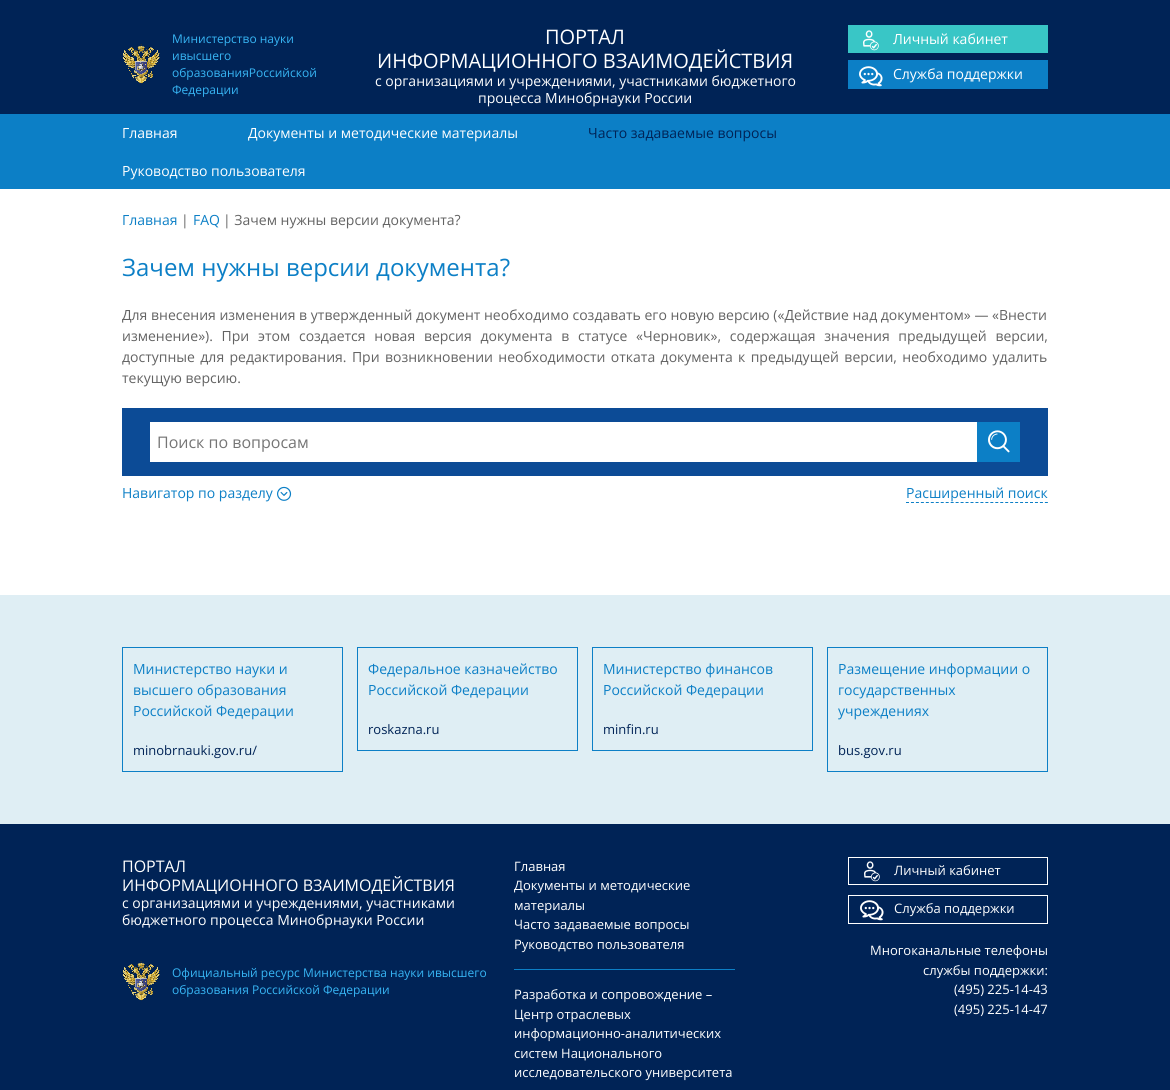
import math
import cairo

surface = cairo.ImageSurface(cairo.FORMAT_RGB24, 1170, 1090)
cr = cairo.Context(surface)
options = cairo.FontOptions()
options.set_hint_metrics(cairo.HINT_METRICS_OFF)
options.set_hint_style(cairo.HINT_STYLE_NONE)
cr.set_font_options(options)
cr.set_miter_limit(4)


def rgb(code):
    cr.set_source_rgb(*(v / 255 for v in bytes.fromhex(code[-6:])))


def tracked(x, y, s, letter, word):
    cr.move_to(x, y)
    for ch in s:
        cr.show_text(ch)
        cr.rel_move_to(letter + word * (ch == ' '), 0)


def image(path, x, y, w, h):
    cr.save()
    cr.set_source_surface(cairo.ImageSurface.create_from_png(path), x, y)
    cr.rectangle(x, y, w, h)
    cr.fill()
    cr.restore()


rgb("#ffffff")
cr.paint()
rgb("#002356")
cr.rectangle(0, 0, 1170, 114)
cr.fill()
image("img/1.png", 122, 44, 38, 40)
rgb("#39c6c6")
cr.rectangle(848, 25, 200, 28)
cr.fill()
image("img/2.png", 863, 30, 16, 21)
rgb("#0c7fc6")
cr.rectangle(848, 60, 200, 29)
cr.fill()
image("img/3.png", 859, 66, 24, 21)
for x, y, w, h, color in [
    (0, 114, 1170, 75, "#0c7fc6"),
    (122, 408, 926, 68, "#0c4b96"),
    (150, 422, 827, 40, "#ffffff"),
    (977, 422, 43, 40, "#0c7fc6"),
]:
    rgb(color)
    cr.rectangle(x, y, w, h)
    cr.fill()
image("img/4.png", 988, 430, 22, 23)
image("img/5.png", 277, 486, 15, 15)
cr.new_path()
cr.move_to(906, 502.5)
cr.line_to(1048, 502.5)
cr.set_line_width(1)
cr.set_dash([3, 1.96])
cr.stroke()
rgb("#dfeef4")
cr.rectangle(0, 595, 1170, 229)
cr.fill()
cr.rectangle(122.5, 647.5, 220, 124)
rgb("#0c7fc6")
cr.set_dash([])
cr.stroke()
cr.rectangle(357.5, 647.5, 220, 103)
cr.stroke()
cr.rectangle(592.5, 647.5, 220, 103)
cr.stroke()
cr.rectangle(827.5, 647.5, 220, 124)
cr.stroke()
rgb("#002356")
cr.rectangle(0, 824, 1170, 266)
cr.fill()
image("img/1.png", 122, 961, 38, 40)
rgb("#0c7fc6")
cr.rectangle(514, 969, 221, 1)
cr.fill()
cr.rectangle(848.5, 857.5, 199, 27)
rgb("#ffffff")
cr.stroke()
image("img/6.png", 864, 861, 16, 21)
cr.rectangle(848.5, 895.5, 199, 28)
cr.stroke()
image("img/7.png", 860, 900, 24, 21)
cr.select_font_face("Open Sans")
cr.set_font_size(12)
rgb("#37b5f4")
for x, y, s in [
    (172, 43, "Министерство науки"),
    (172, 60, "ивысшего"),
    (172, 77, "образованияРоссийской"),
    (172, 94, "Федерации"),
]:
    cr.move_to(x, y)
    cr.show_text(s)
cr.set_font_size(20)
rgb("#ffffff")
cr.move_to(545, 44)
cr.show_text("ПОРТАЛ")
cr.move_to(377, 68)
cr.show_text("ИНФОРМАЦИОННОГО ВЗАИМОДЕЙСТВИЯ")
cr.set_font_size(14)
for x, y, s in [
    (375, 86, "с организациями и учреждениями, участниками бюджетного"),
    (478, 103, "процесса Минобрнауки России"),
    (893, 44, "Личный кабинет"),
    (893, 79, "Служба поддержки"),
    (122, 138, "Главная"),
    (248, 138, "Документы и методические материалы"),
]:
    cr.move_to(x, y)
    cr.show_text(s)
rgb("#002356")
cr.move_to(588, 138)
cr.show_text("Часто задаваемые вопросы")
rgb("#ffffff")
cr.move_to(122, 176)
cr.show_text("Руководство пользователя")
rgb("#0c7fc6")
cr.move_to(122, 225)
cr.show_text("Главная")
rgb("#636363")
cr.move_to(181, 225)
cr.show_text("|")
rgb("#0c7fc6")
cr.move_to(193, 225)
cr.show_text("FAQ")
rgb("#636363")
cr.move_to(223, 225)
cr.show_text("| Зачем нужны версии документа?")
cr.set_font_size(24)
rgb("#0c7fc6")
cr.move_to(122, 276)
cr.show_text("Зачем нужны версии документа?")
cr.set_font_size(14)
rgb("#636363")
cr.move_to(122, 320)
cr.show_text("Для внесения изменения в утвержденный документ необходимо создавать его новую версию («Действие над документом» — «Внести")
tracked(122, 341, "изменение»). При этом создается новая версия документа в статусе «Черновик», содержащая значения предыдущей версии,", 0, 5.1)
tracked(122, 362, "доступные для редактирования. При возникновении необходимости отката документа к предыдущей версии, необходимо удалить", 0, 1.75)
cr.move_to(122, 383)
cr.show_text("текущую версию.")
cr.set_font_size(16)
rgb("#757575")
cr.move_to(157, 448)
cr.show_text("Поиск по вопросам")
cr.set_font_size(14)
rgb("#0c7fc6")
for x, y, s in [
    (122, 498, "Навигатор по разделу"),
    (906, 498, "Расширенный поиск"),
    (133, 674, "Министерство науки и"),
    (133, 695, "высшего образования"),
    (133, 716, "Российской Федерации"),
]:
    cr.move_to(x, y)
    cr.show_text(s)
cr.set_font_size(13)
rgb("#002356")
cr.move_to(133, 755)
cr.show_text("minobrnauki.gov.ru/")
cr.set_font_size(14)
rgb("#0c7fc6")
cr.move_to(368, 674)
cr.show_text("Федеральное казначейство")
cr.move_to(368, 695)
cr.show_text("Российской Федерации")
cr.set_font_size(13)
rgb("#002356")
cr.move_to(368, 734)
cr.show_text("roskazna.ru")
cr.set_font_size(14)
rgb("#0c7fc6")
cr.move_to(603, 674)
cr.show_text("Министерство финансов")
cr.move_to(603, 695)
cr.show_text("Российской Федерации")
cr.set_font_size(13)
rgb("#002356")
cr.move_to(603, 734)
cr.show_text("minfin.ru")
cr.set_font_size(14)
rgb("#0c7fc6")
for x, y, s in [
    (838, 674, "Размещение информации о"),
    (838, 695, "государственных"),
    (838, 716, "учреждениях"),
]:
    cr.move_to(x, y)
    cr.show_text(s)
cr.set_font_size(13)
rgb("#002356")
cr.move_to(838, 755)
cr.show_text("bus.gov.ru")
cr.set_font_size(16)
rgb("#ffffff")
cr.move_to(122, 872)
cr.show_text("ПОРТАЛ")
cr.move_to(122, 891)
cr.show_text("ИНФОРМАЦИОННОГО ВЗАИМОДЕЙСТВИЯ")
cr.set_font_size(14)
cr.move_to(122, 908)
cr.show_text("с организациями и учреждениями, участниками")
cr.move_to(122, 925)
cr.show_text("бюджетного процесса Минобрнауки России")
cr.set_font_size(12)
rgb("#37b5f4")
cr.move_to(172, 977)
cr.show_text("Официальный ресурс Министерства науки ивысшего")
cr.move_to(172, 994)
cr.show_text("образования Российской Федерации")
cr.set_font_size(13)
rgb("#ffffff")
for x, y, s in [
    (514, 871, "Главная"),
    (514, 890, "Документы и методические"),
    (514, 910, "материалы"),
    (514, 929, "Часто задаваемые вопросы"),
    (514, 949, "Руководство пользователя"),
    (514, 999, "Разработка и сопровождение –"),
    (514, 1019, "Центр отраслевых"),
    (514, 1038, "информационно-аналитических"),
    (514, 1058, "систем Национального"),
    (514, 1077, "исследовательского университета"),
    (894, 875, "Личный кабинет"),
    (894, 913, "Служба поддержки"),
    (870, 955, "Многоканальные телефоны"),
    (923, 975, "службы поддержки:"),
    (954, 994, "(495) 225-14-43"),
    (954, 1014, "(495) 225-14-47"),
]:
    cr.move_to(x, y)
    cr.show_text(s)
surface.write_to_png("page.png")
